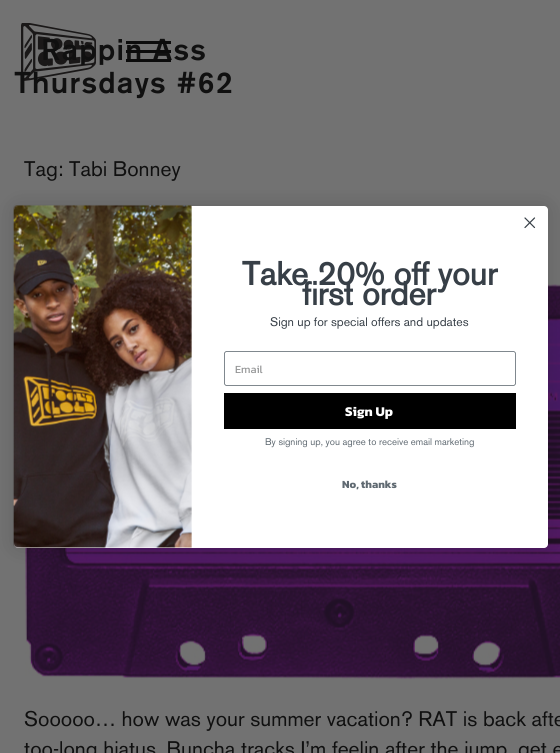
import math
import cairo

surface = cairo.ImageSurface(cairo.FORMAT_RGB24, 560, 753)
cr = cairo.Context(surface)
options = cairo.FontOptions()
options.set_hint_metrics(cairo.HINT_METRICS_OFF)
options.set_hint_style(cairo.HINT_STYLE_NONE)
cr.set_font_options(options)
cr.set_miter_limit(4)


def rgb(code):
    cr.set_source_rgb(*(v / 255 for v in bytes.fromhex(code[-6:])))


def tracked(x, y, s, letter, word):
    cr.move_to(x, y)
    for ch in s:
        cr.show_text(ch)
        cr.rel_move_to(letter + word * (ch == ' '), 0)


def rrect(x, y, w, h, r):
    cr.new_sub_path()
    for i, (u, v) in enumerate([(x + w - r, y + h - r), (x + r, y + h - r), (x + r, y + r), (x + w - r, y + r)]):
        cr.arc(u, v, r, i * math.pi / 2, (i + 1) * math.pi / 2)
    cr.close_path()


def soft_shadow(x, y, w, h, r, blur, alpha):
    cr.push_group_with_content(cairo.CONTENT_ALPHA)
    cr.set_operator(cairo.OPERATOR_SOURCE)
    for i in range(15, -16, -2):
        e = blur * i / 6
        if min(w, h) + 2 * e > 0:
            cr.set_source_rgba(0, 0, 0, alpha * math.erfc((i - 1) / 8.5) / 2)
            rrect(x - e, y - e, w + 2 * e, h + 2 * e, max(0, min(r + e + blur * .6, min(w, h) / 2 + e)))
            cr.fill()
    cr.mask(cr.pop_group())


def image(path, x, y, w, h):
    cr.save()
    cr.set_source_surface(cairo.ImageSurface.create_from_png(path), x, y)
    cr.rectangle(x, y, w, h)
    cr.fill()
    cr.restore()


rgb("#727272")
cr.paint()
image("img/1.png", 21, 23, 75, 58)
image("img/2.png", 25, 284, 535, 396)
rgb("#000000")
soft_shadow(14, 206, 534, 342, 4, 10.5, 0.15)
rgb("#ffffff")
rrect(14, 206, 534, 342, 4)
cr.fill()
cr.new_path()
cr.move_to(525, 218)
cr.line_to(534.5, 227.5)
cr.move_to(525, 227.5)
cr.line_to(534.5, 218)
cr.close_path()
rgb("#373f47")
cr.set_line_width(1.2)
cr.set_line_cap(cairo.LINE_CAP_ROUND)
cr.set_line_join(cairo.LINE_JOIN_ROUND)
cr.stroke()
image("img/3.png", 13, 205, 179, 343)
rrect(224.4, 351.4, 291.2, 34.2, 2.6)
rgb("#606a72")
cr.set_line_width(0.8)
cr.set_line_cap(cairo.LINE_CAP_BUTT)
cr.set_line_join(cairo.LINE_JOIN_MITER)
cr.stroke()
rgb("#000000")
cr.rectangle(224, 393, 292, 36)
cr.fill()
cr.select_font_face("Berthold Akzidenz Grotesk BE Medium")
cr.set_font_size(30)
rgb("#101010")
tracked(41, 60, "Rappin Ass", 1.25, 0)
for x, y, w, h, color in [
    (126, 59, 45, 3, "#0c0c0c"),
    (126, 50, 45, 3, "#0c0c0c"),
    (126, 41, 45, 3, "#0c0c0c"),
]:
    rgb(color)
    cr.rectangle(x, y, w, h)
    cr.fill()
rgb("#101010")
tracked(14, 93, "Thursdays #62", 1.25, 0)
cr.select_font_face("Berthold Akzidenz Grotesk BE")
cr.set_font_size(21)
for x, y, s in [
    (24, 176, "Tag: Tabi Bonney"),
    (24, 726, "Sooooo… how was your summer vacation? RAT is back afte"),
    (24, 756, "too-long hiatus. Buncha tracks I’m feelin after the jump, get e"),
]:
    cr.move_to(x, y)
    cr.show_text(s)
cr.select_font_face("Berthold Akzidenz Grotesk BE", cairo.FONT_SLANT_NORMAL, cairo.FONT_WEIGHT_BOLD)
cr.set_font_size(32.75)
rgb("#373f47")
cr.move_to(242, 285)
cr.show_text("Take 20% off your")
cr.move_to(302, 305)
cr.show_text("first order")
cr.select_font_face("Berthold Akzidenz Grotesk BE")
cr.set_font_size(12.25)
cr.move_to(270, 326)
cr.show_text("Sign up for special offers and updates")
cr.select_font_face("Kanit")
cr.set_font_size(11)
rgb("#949596")
cr.move_to(235, 373)
cr.show_text("Email")
cr.select_font_face("Kanit", cairo.FONT_SLANT_NORMAL, cairo.FONT_WEIGHT_BOLD)
cr.set_font_size(13.5)
rgb("#ffffff")
cr.move_to(345, 416)
cr.show_text("Sign Up")
cr.select_font_face("Berthold Akzidenz Grotesk BE")
cr.set_font_size(9.6)
rgb("#606a72")
cr.move_to(265, 445)
cr.show_text("By signing up, you agree to receive email marketing")
cr.select_font_face("Kanit", cairo.FONT_SLANT_NORMAL, cairo.FONT_WEIGHT_BOLD)
cr.set_font_size(11)
cr.move_to(342, 488)
cr.show_text("No, thanks")
surface.write_to_png("page.png")
